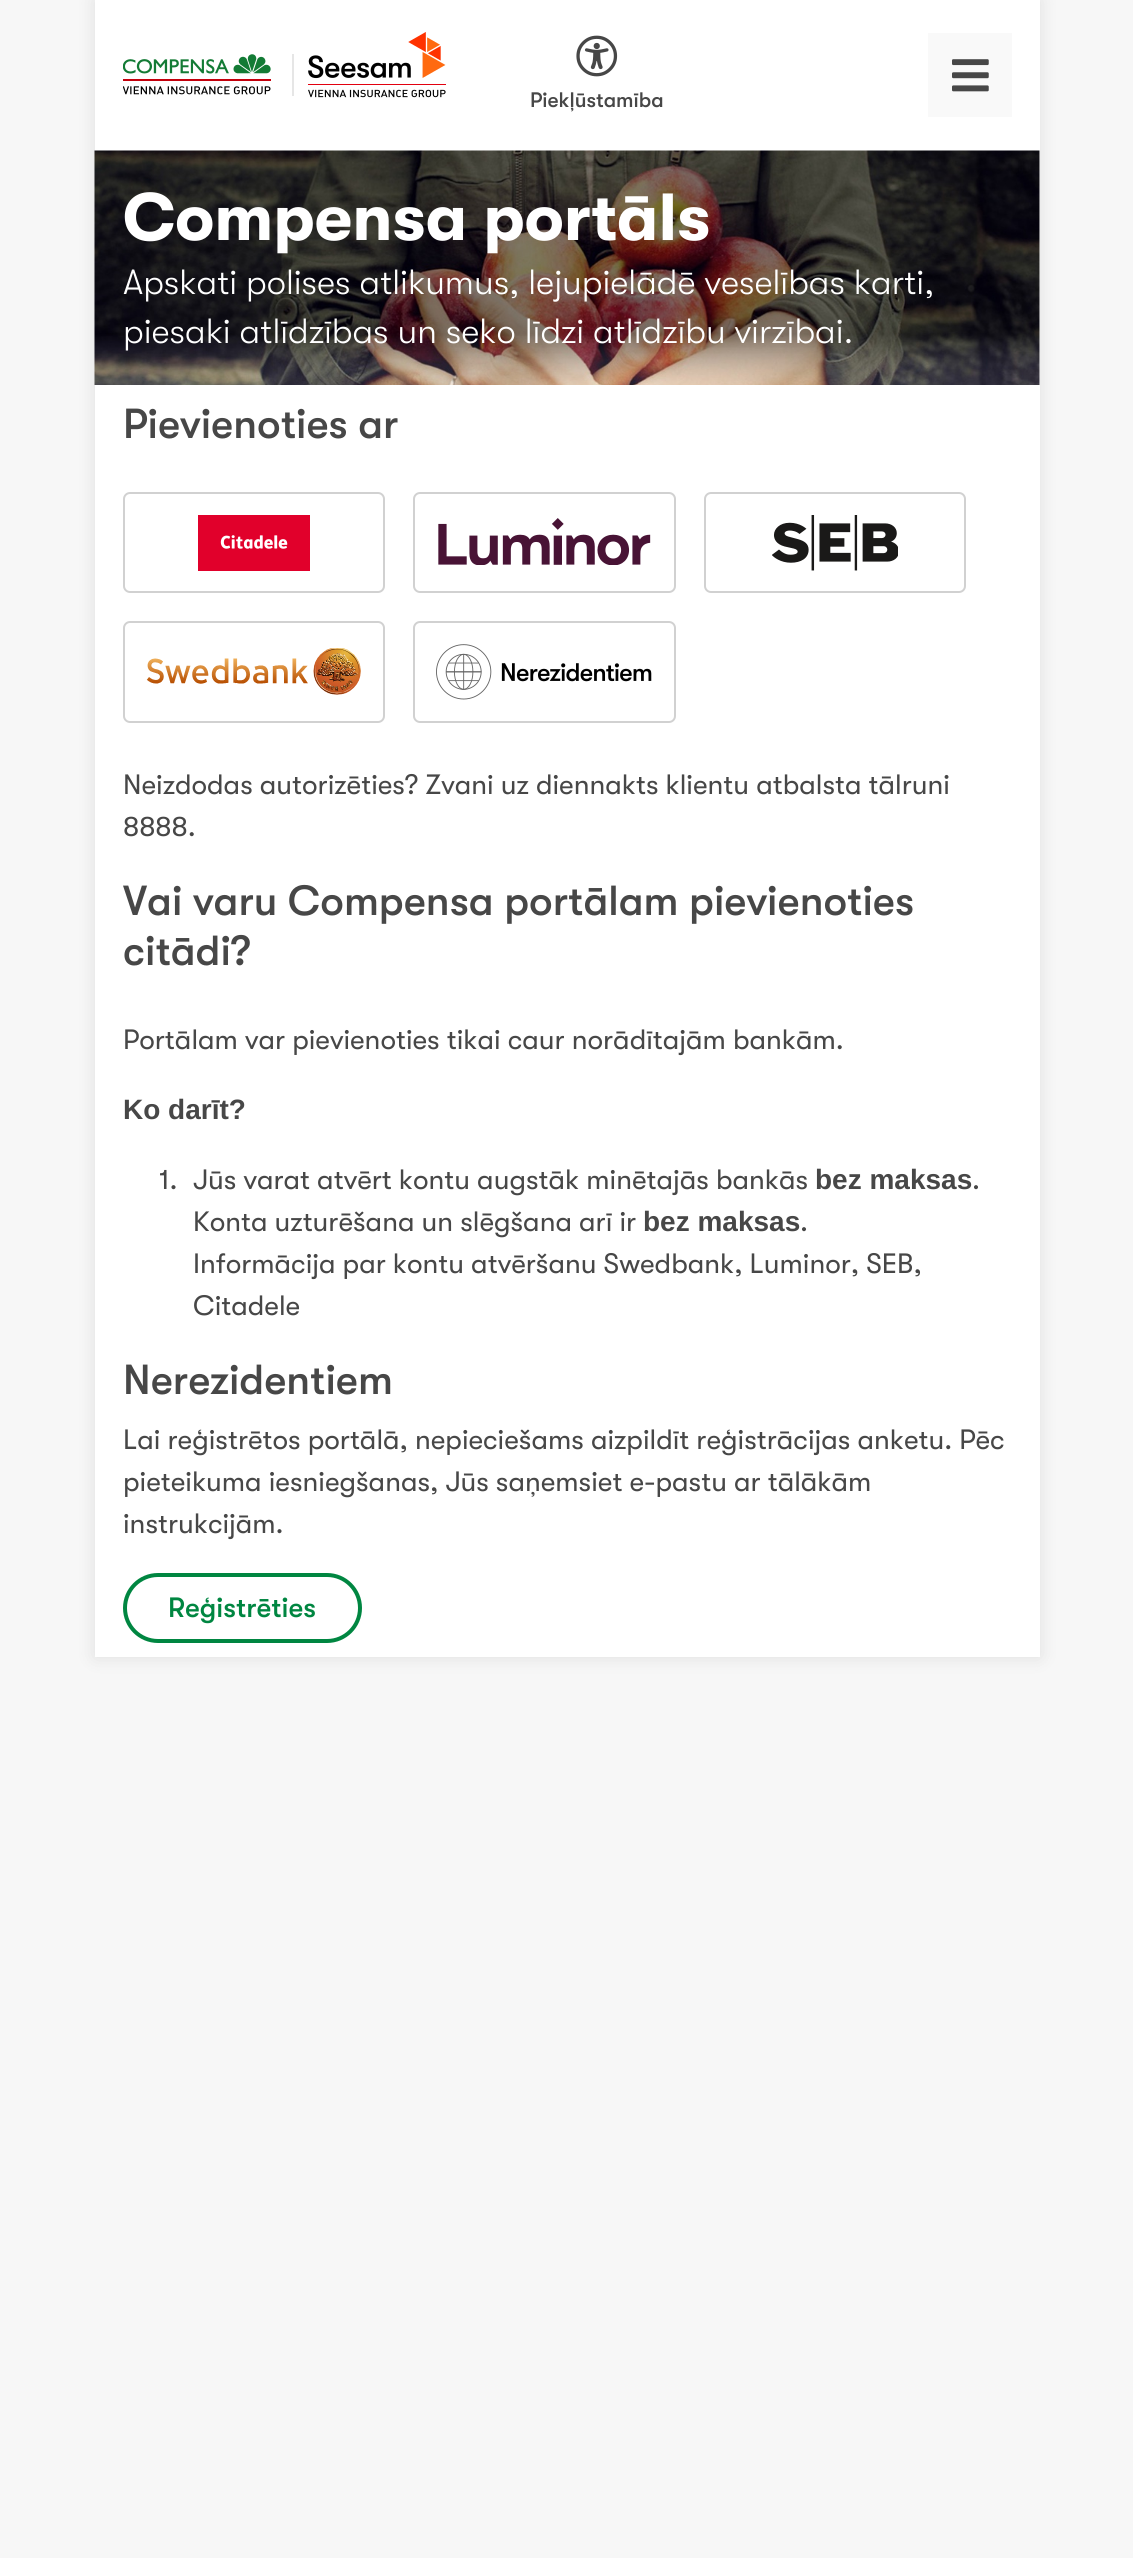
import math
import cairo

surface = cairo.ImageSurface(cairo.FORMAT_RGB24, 1133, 2558)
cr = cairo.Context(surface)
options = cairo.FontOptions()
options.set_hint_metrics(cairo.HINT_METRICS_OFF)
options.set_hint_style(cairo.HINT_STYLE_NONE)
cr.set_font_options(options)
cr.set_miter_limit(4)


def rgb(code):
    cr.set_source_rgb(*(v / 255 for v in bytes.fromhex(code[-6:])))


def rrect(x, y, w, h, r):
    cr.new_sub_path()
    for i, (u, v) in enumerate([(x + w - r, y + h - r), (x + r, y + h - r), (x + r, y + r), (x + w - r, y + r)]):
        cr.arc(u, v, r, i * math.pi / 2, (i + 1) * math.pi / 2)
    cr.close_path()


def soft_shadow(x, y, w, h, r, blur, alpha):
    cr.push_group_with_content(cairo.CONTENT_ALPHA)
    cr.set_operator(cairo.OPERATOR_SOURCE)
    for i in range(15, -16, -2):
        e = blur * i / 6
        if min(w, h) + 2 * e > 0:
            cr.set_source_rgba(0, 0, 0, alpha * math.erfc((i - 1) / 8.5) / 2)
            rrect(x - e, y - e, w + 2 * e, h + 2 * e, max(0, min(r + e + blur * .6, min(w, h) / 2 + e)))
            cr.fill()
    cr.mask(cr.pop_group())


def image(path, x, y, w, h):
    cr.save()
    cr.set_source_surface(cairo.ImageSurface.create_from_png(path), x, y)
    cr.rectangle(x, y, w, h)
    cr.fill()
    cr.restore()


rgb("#f7f7f7")
cr.paint()
rgb("#000000")
soft_shadow(95, 0, 945, 1657, 0, 9, 0.1)
rgb("#ffffff")
cr.rectangle(95, 0, 945, 1657)
cr.fill()
rgb("#e6e6e6")
cr.rectangle(292, 54, 2, 42)
cr.fill()
image("img/1.png", 123, 54, 148, 41)
image("img/2.png", 308, 32, 138, 66)
image("img/3.png", 576, 35, 42, 42)
rgb("#f9f9f9")
cr.rectangle(928, 33, 84, 84)
cr.fill()
image("img/4.png", 952, 59, 37, 33)
image("img/5.png", 94, 150, 946, 235)
rrect(124, 493, 260, 99, 6)
rgb("#d1d1d1")
cr.stroke()
image("img/6.png", 198, 515, 112, 56)
rrect(414, 493, 261, 99, 6)
cr.stroke()
image("img/7.png", 438, 518, 213, 47)
rrect(705, 493, 260, 99, 6)
cr.stroke()
image("img/8.png", 772, 515, 126, 56)
rrect(124, 622, 260, 100, 6)
cr.stroke()
image("img/9.png", 146, 648, 215, 47)
rrect(414, 622, 261, 100, 6)
cr.stroke()
image("img/10.png", 436, 644, 216, 56)
rrect(125, 1575, 235, 66, 33)
rgb("#008641")
cr.set_line_width(4)
cr.stroke()
cr.select_font_face("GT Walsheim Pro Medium")
cr.set_font_size(21)
rgb("#474747")
cr.move_to(530, 107)
cr.show_text("Piekļūstamība")
cr.select_font_face("GT Walsheim Pro", cairo.FONT_SLANT_NORMAL, cairo.FONT_WEIGHT_BOLD)
cr.set_font_size(66.5)
rgb("#ffffff")
cr.move_to(123, 240)
cr.show_text("Compensa portāls")
cr.select_font_face("GT Walsheim Pro Light")
cr.set_font_size(35)
cr.move_to(123, 294)
cr.show_text("Apskati polises atlikumus, lejupielādē veselības karti,")
cr.move_to(123, 343)
cr.show_text("piesaki atlīdzības un seko līdzi atlīdzību virzībai.")
cr.select_font_face("GT Walsheim Pro Medium")
cr.set_font_size(42)
rgb("#474747")
cr.move_to(123, 438)
cr.show_text("Pievienoties ar")
cr.select_font_face("GT Walsheim Pro")
cr.set_font_size(28)
cr.move_to(123, 794)
cr.show_text("Neizdodas autorizēties? Zvani uz diennakts klientu atbalsta tālruni")
cr.move_to(123, 836)
cr.show_text("8888.")
cr.select_font_face("GT Walsheim Pro Medium")
cr.set_font_size(42)
cr.move_to(123, 915)
cr.show_text("Vai varu Compensa portālam pievienoties")
cr.move_to(123, 965)
cr.show_text("citādi?")
cr.select_font_face("GT Walsheim Pro")
cr.set_font_size(28)
cr.move_to(123, 1049)
cr.show_text("Portālam var pievienoties tikai caur norādītajām bankām.")
cr.select_font_face("Liberation Sans", cairo.FONT_SLANT_NORMAL, cairo.FONT_WEIGHT_BOLD)
cr.move_to(123, 1119)
cr.show_text("Ko darīt?")
cr.select_font_face("GT Walsheim Pro")
cr.move_to(159, 1189)
cr.show_text("1.")
cr.move_to(193, 1189)
cr.show_text("Jūs varat atvērt kontu augstāk minētajās bankās")
cr.select_font_face("Liberation Sans", cairo.FONT_SLANT_NORMAL, cairo.FONT_WEIGHT_BOLD)
cr.move_to(815, 1189)
cr.show_text("bez maksas")
cr.select_font_face("GT Walsheim Pro")
cr.move_to(972, 1189)
cr.show_text(".")
cr.move_to(193, 1231)
cr.show_text("Konta uzturēšana un slēgšana arī ir")
cr.select_font_face("Liberation Sans", cairo.FONT_SLANT_NORMAL, cairo.FONT_WEIGHT_BOLD)
cr.move_to(643, 1231)
cr.show_text("bez maksas")
cr.select_font_face("GT Walsheim Pro")
for x, y, s in [
    (800, 1231, "."),
    (193, 1273, "Informācija par kontu atvēršanu Swedbank, Luminor, SEB,"),
    (193, 1315, "Citadele"),
]:
    cr.move_to(x, y)
    cr.show_text(s)
cr.select_font_face("GT Walsheim Pro Medium")
cr.set_font_size(42)
cr.move_to(123, 1394)
cr.show_text("Nerezidentiem")
cr.select_font_face("GT Walsheim Pro")
cr.set_font_size(28)
for x, y, s in [
    (123, 1449, "Lai reģistrētos portālā, nepieciešams aizpildīt reģistrācijas anketu. Pēc"),
    (123, 1491, "pieteikuma iesniegšanas, Jūs saņemsiet e-pastu ar tālākām"),
    (123, 1533, "instrukcijām."),
]:
    cr.move_to(x, y)
    cr.show_text(s)
cr.select_font_face("GT Walsheim Pro Medium")
rgb("#008641")
cr.move_to(168, 1617)
cr.show_text("Reģistrēties")
surface.write_to_png("page.png")
